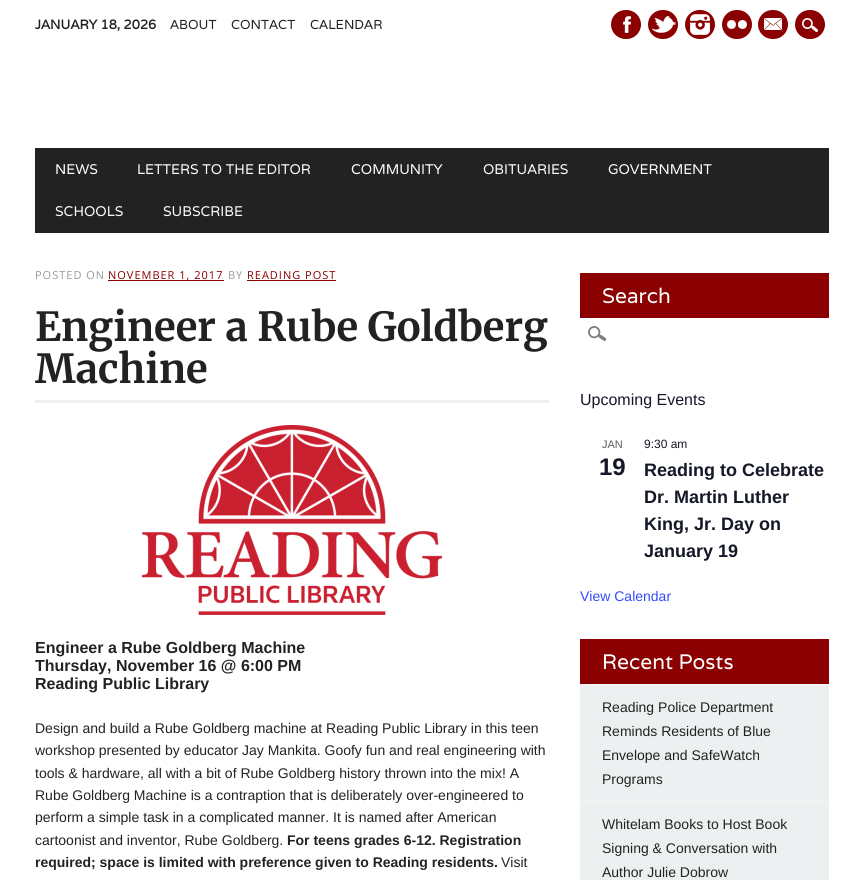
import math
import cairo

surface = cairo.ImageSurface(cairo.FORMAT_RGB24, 864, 880)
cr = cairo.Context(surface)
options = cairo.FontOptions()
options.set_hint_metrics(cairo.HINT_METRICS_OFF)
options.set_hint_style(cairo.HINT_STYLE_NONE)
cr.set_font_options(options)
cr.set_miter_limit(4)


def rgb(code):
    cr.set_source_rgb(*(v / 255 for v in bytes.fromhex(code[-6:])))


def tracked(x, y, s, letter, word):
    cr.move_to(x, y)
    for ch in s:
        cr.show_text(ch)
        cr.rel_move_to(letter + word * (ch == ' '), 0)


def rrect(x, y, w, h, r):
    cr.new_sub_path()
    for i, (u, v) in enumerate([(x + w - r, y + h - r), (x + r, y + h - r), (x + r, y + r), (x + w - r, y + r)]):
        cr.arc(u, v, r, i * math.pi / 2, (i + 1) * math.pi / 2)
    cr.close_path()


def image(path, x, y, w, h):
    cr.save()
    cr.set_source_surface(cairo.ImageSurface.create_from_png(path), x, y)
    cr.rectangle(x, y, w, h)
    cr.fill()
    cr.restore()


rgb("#ffffff")
cr.paint()
rgb("#8b0000")
rrect(611, 10, 30, 29, 14.5)
cr.fill()
image("img/1.png", 623, 16, 8, 17)
rrect(648, 10, 30, 29, 14.5)
cr.fill()
image("img/2.png", 652, 16, 24, 17)
rrect(685, 10, 30, 29, 14.5)
cr.fill()
image("img/3.png", 690, 14, 20, 21)
rrect(722, 10, 30, 29, 14.5)
cr.fill()
image("img/4.png", 727, 20, 20, 9)
rrect(758, 10, 30, 29, 14.5)
cr.fill()
image("img/5.png", 764, 18, 18, 12)
rrect(795, 10, 30, 29, 14.5)
cr.fill()
image("img/6.png", 802, 18, 16, 14)
for x, y, w, h, color in [
    (35, 148, 794, 85, "#222222"),
    (108, 280, 116, 1, "#8b0000"),
    (247, 280, 89, 1, "#8b0000"),
    (35, 400, 514, 3, "#ecf0f1"),
]:
    rgb(color)
    cr.rectangle(x, y, w, h)
    cr.fill()
image("img/7.png", 142, 425, 300, 190)
rgb("#8b0000")
cr.rectangle(580, 273, 249, 45)
cr.fill()
image("img/8.png", 588, 326, 19, 15)
for x, y, w, h, color in [
    (580, 685, 249, 195, "#ecf0f1"),
    (580, 639, 249, 45, "#8b0000"),
    (580, 684, 249, 1, "#f6f8f8"),
    (580, 801, 249, 1, "#f6f8f8"),
]:
    rgb(color)
    cr.rectangle(x, y, w, h)
    cr.fill()
cr.select_font_face("Varela", cairo.FONT_SLANT_NORMAL, cairo.FONT_WEIGHT_BOLD)
cr.set_font_size(13)
rgb("#222222")
cr.move_to(35, 29)
cr.show_text("JANUARY 18, 2026")
cr.select_font_face("Varela")
for x, y, s in [
    (170, 29, "ABOUT"),
    (231, 29, "CONTACT"),
    (310, 29, "CALENDAR"),
]:
    cr.move_to(x, y)
    cr.show_text(s)
cr.set_font_size(14)
rgb("#ffffff")
for x, y, s in [
    (55, 174, "NEWS"),
    (137, 174, "LETTERS TO THE EDITOR"),
    (351, 174, "COMMUNITY"),
    (483, 174, "OBITUARIES"),
    (608, 174, "GOVERNMENT"),
    (55, 216, "SCHOOLS"),
    (163, 216, "SUBSCRIBE"),
]:
    cr.move_to(x, y)
    cr.show_text(s)
cr.select_font_face("Open Sans")
cr.set_font_size(11)
rgb("#999999")
tracked(35, 279, "POSTED ON", 1, 0)
rgb("#8b0000")
tracked(108, 279, "NOVEMBER 1, 2017", 1, 0)
rgb("#999999")
tracked(228, 279, "BY", 1, 0)
rgb("#8b0000")
tracked(247, 279, "READING POST", 1, 0)
cr.select_font_face("Merriweather", cairo.FONT_SLANT_NORMAL, cairo.FONT_WEIGHT_BOLD)
cr.set_font_size(40)
rgb("#222222")
cr.move_to(35, 341)
cr.show_text("Engineer a Rube Goldberg")
cr.move_to(35, 383)
cr.show_text("Machine")
cr.select_font_face("Liberation Sans", cairo.FONT_SLANT_NORMAL, cairo.FONT_WEIGHT_BOLD)
cr.set_font_size(16)
for x, y, s in [
    (35, 653, "Engineer a Rube Goldberg Machine"),
    (35, 671, "Thursday, November 16 @ 6:00 PM"),
    (35, 689, "Reading Public Library"),
]:
    cr.move_to(x, y)
    cr.show_text(s)
cr.select_font_face("Liberation Sans")
cr.set_font_size(14)
for x, y, s in [
    (35, 733, "Design and build a Rube Goldberg machine at Reading Public Library in this teen"),
    (35, 755, "workshop presented by educator Jay Mankita. Goofy fun and real engineering with"),
    (35, 778, "tools & hardware, all with a bit of Rube Goldberg history thrown into the mix! A"),
    (35, 800, "Rube Goldberg Machine is a contraption that is deliberately over-engineered to"),
    (35, 822, "perform a simple task in a complicated manner. It is named after American"),
    (35, 845, "cartoonist and inventor, Rube Goldberg."),
]:
    cr.move_to(x, y)
    cr.show_text(s)
cr.select_font_face("Liberation Sans", cairo.FONT_SLANT_NORMAL, cairo.FONT_WEIGHT_BOLD)
cr.move_to(287, 845)
cr.show_text("For teens grades 6-12. Registration")
cr.move_to(35, 867)
cr.show_text("required; space is limited with preference given to Reading residents.")
cr.select_font_face("Liberation Sans")
cr.move_to(501, 867)
cr.show_text("Visit")
cr.select_font_face("Varela")
cr.set_font_size(21)
rgb("#ffffff")
cr.move_to(602, 303)
cr.show_text("Search")
cr.select_font_face("Liberation Sans")
cr.set_font_size(16)
rgb("#141827")
cr.move_to(580, 405)
cr.show_text("Upcoming Events")
cr.set_font_size(11)
rgb("#5d5d5d")
cr.move_to(602, 448)
cr.show_text("JAN")
cr.select_font_face("Liberation Sans", cairo.FONT_SLANT_NORMAL, cairo.FONT_WEIGHT_BOLD)
cr.set_font_size(24)
rgb("#141827")
cr.move_to(599, 475)
cr.show_text("19")
cr.select_font_face("Liberation Sans")
cr.set_font_size(12)
cr.move_to(644, 448)
cr.show_text("9:30 am")
cr.select_font_face("Liberation Sans", cairo.FONT_SLANT_NORMAL, cairo.FONT_WEIGHT_BOLD)
cr.set_font_size(18)
for x, y, s in [
    (644, 476, "Reading to Celebrate"),
    (644, 503, "Dr. Martin Luther"),
    (644, 530, "King, Jr. Day on"),
    (644, 557, "January 19"),
]:
    cr.move_to(x, y)
    cr.show_text(s)
cr.select_font_face("Liberation Sans")
cr.set_font_size(14)
rgb("#334aff")
cr.move_to(580, 601)
cr.show_text("View Calendar")
cr.select_font_face("Varela")
cr.set_font_size(21)
rgb("#ffffff")
cr.move_to(602, 669)
cr.show_text("Recent Posts")
cr.select_font_face("Liberation Sans")
cr.set_font_size(14)
rgb("#222222")
for x, y, s in [
    (602, 712, "Reading Police Department"),
    (602, 736, "Reminds Residents of Blue"),
    (602, 760, "Envelope and SafeWatch"),
    (602, 784, "Programs"),
    (602, 829, "Whitelam Books to Host Book"),
    (602, 853, "Signing & Conversation with"),
    (602, 877, "Author Julie Dobrow"),
]:
    cr.move_to(x, y)
    cr.show_text(s)
surface.write_to_png("page.png")
